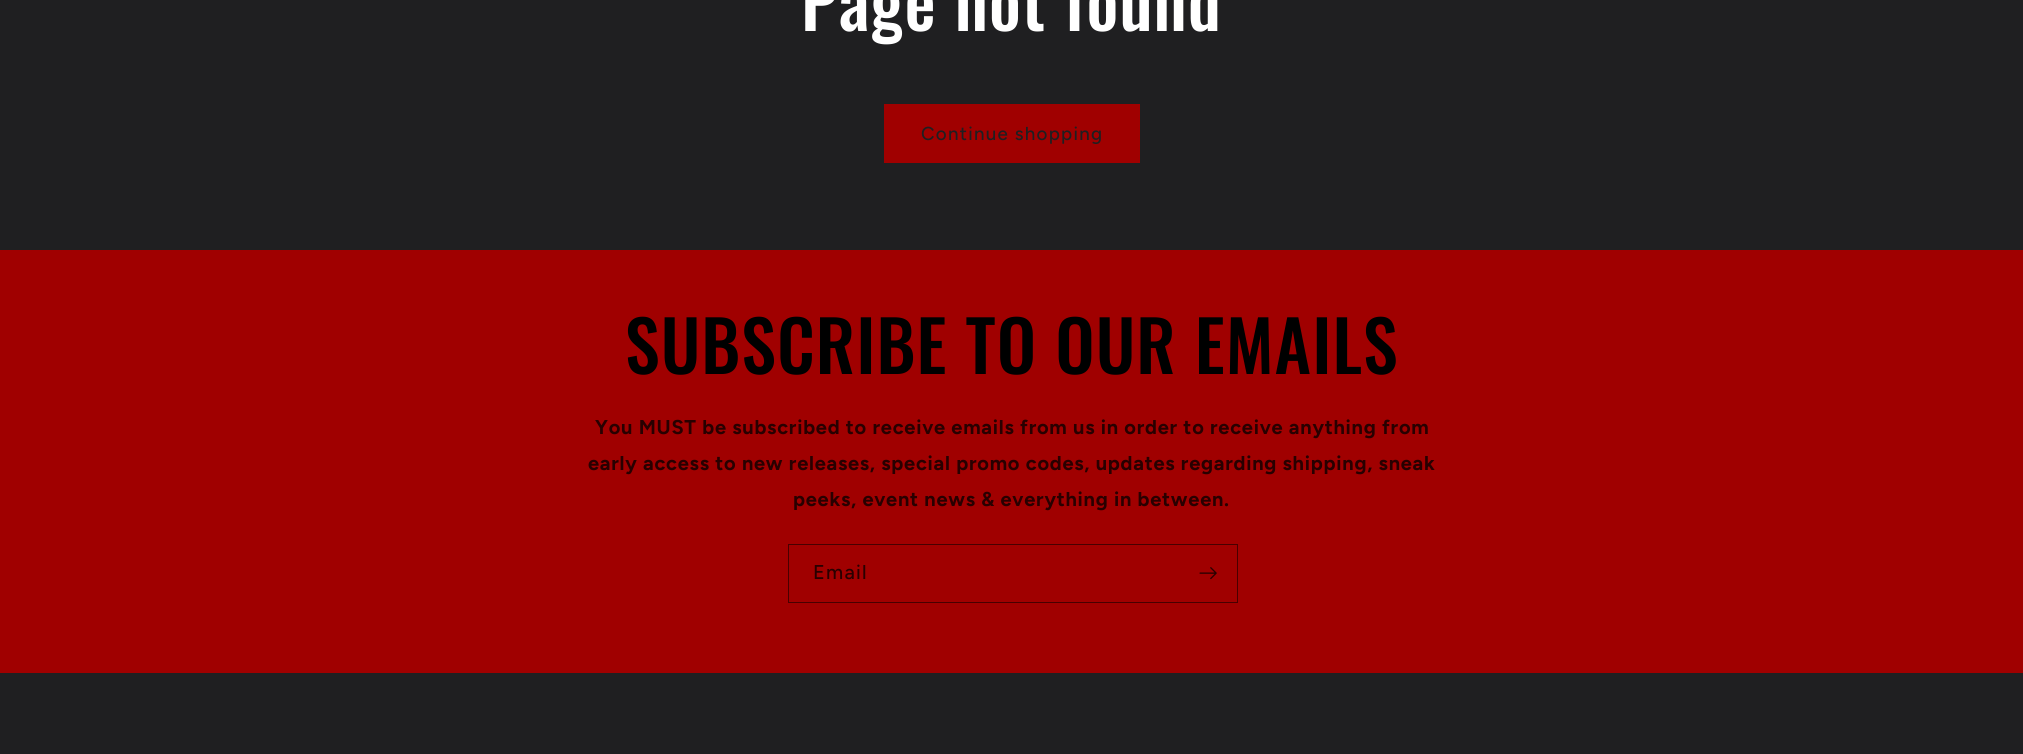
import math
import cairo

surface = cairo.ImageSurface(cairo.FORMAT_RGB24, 2023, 754)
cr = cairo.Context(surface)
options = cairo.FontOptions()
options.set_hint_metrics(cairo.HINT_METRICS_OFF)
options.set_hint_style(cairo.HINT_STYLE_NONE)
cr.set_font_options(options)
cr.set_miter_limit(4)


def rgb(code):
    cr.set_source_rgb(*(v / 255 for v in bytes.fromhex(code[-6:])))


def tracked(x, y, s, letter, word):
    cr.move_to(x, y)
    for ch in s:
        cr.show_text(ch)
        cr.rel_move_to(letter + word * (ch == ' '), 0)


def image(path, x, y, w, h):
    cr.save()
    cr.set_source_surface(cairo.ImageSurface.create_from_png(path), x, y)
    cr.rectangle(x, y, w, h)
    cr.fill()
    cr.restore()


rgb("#1f1f21")
cr.paint()
rgb("#a00000")
cr.rectangle(884, 104, 256, 59)
cr.fill()
cr.rectangle(0, 250, 2023, 423)
cr.fill()
cr.rectangle(788.5, 544.5, 449, 58)
rgb("#480000")
cr.set_line_width(1)
cr.stroke()
image("img/1.png", 1199, 567, 18, 13)
cr.select_font_face("Oswald Medium")
cr.set_font_size(70)
rgb("#ffffff")
tracked(801, 31, "Page not found", 1.05, 0)
cr.select_font_face("Figtree Medium")
cr.set_font_size(18.75)
rgb("#1f1f21")
tracked(921, 140, "Continue shopping", 1.25, 0)
cr.select_font_face("Oswald Medium")
cr.set_font_size(70)
rgb("#000000")
tracked(625, 374, "SUBSCRIBE TO OUR EMAILS", 1.05, 0)
cr.select_font_face("Figtree", cairo.FONT_SLANT_NORMAL, cairo.FONT_WEIGHT_BOLD)
cr.set_font_size(20)
rgb("#280000")
for x, y, s in [
    (595, 434, "You MUST be subscribed to receive emails from us in order to receive anything from"),
    (588, 470, "early access to new releases, special promo codes, updates regarding shipping, sneak"),
    (793, 506, "peeks, event news & everything in between."),
]:
    tracked(x, y, s, 0.75, 0)
cr.select_font_face("Figtree Medium")
tracked(813, 579, "Email", 1.25, 0)
surface.write_to_png("page.png")
